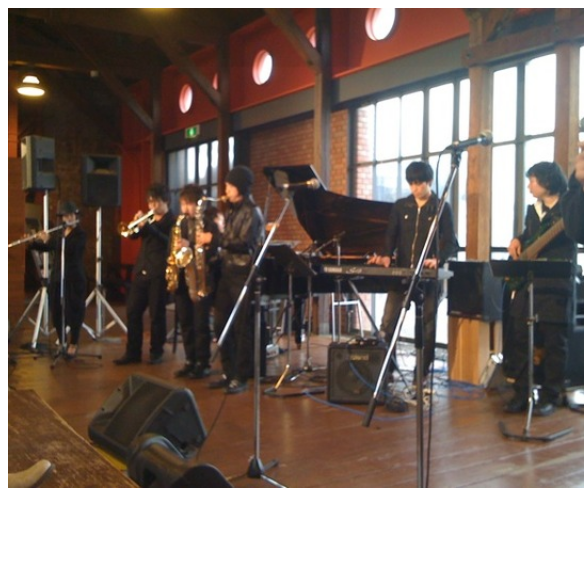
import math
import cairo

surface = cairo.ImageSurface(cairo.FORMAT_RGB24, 584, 570)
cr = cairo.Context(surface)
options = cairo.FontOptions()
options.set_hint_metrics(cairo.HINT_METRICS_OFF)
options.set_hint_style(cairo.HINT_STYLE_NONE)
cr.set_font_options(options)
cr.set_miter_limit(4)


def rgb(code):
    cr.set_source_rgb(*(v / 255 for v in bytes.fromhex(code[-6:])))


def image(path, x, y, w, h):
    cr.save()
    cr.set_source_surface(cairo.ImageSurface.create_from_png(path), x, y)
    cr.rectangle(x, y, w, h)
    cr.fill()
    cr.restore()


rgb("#ffffff")
cr.paint()
image("img/1.png", 8, 8, 576, 480)
surface.write_to_png("page.png")
